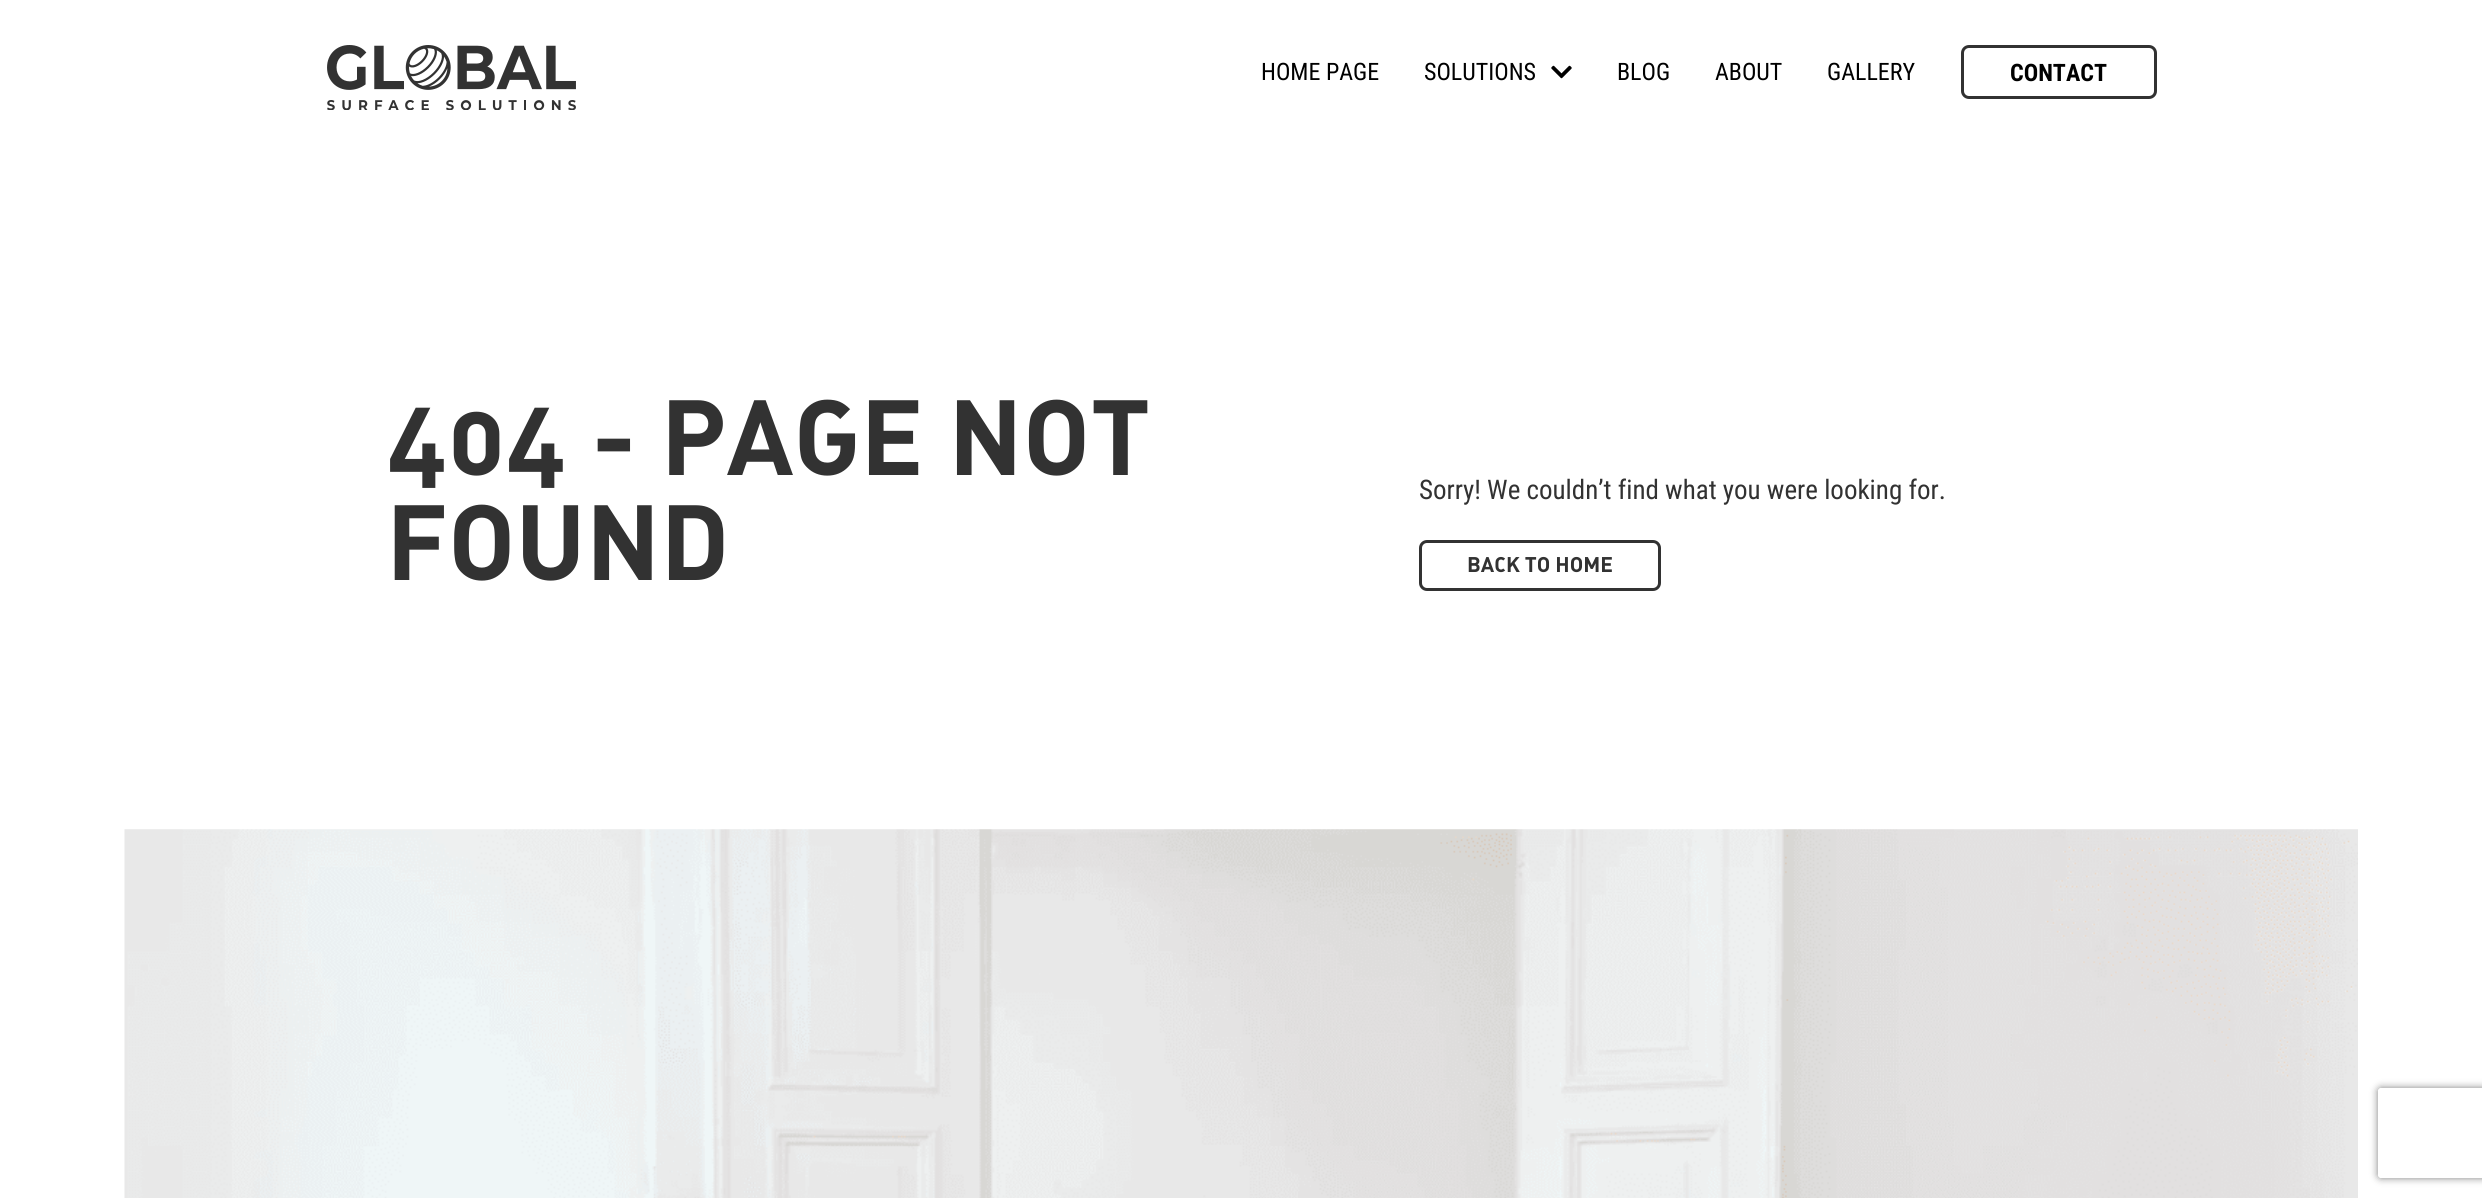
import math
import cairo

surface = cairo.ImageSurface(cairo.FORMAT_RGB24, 2482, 1198)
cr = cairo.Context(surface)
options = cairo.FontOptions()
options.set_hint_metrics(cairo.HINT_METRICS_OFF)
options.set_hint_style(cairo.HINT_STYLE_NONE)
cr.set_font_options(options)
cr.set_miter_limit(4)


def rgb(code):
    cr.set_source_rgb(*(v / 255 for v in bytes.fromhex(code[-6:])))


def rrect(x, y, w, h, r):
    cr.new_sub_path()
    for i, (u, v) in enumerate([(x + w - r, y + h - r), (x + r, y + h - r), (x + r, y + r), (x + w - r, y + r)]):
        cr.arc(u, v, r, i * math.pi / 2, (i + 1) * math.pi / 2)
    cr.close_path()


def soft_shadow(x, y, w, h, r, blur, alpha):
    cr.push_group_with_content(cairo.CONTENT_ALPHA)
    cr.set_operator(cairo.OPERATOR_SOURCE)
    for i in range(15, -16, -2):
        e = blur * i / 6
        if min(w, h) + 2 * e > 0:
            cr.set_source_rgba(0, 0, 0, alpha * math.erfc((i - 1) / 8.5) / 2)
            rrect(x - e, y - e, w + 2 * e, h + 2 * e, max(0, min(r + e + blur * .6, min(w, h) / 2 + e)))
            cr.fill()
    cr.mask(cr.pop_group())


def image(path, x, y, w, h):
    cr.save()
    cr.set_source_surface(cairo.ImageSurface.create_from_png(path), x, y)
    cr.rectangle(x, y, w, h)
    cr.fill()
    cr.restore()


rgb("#ffffff")
cr.paint()
image("img/1.png", 327, 45, 249, 65)
image("img/2.png", 1551, 65, 21, 14)
rrect(1962.5, 46.5, 193, 51, 6.5)
rgb("#323232")
cr.set_line_width(3)
cr.stroke()
rrect(1420.5, 541.5, 239, 48, 6.5)
cr.stroke()
image("img/3.png", 124, 829, 2234, 369)
cr.save()
cr.set_fill_rule(cairo.FILL_RULE_EVEN_ODD)
cr.new_path()
cr.move_to(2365, 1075)
cr.line_to(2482, 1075)
cr.line_to(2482, 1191)
cr.line_to(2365, 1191)
cr.close_path()
cr.move_to(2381, 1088)
cr.line_to(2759, 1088)
cr.curve_to(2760.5, 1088, 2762, 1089.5, 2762, 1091)
cr.line_to(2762, 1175)
cr.curve_to(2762, 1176.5, 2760.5, 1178, 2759, 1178)
cr.line_to(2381, 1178)
cr.curve_to(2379.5, 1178, 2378, 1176.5, 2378, 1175)
cr.line_to(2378, 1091)
cr.curve_to(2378, 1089.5, 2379.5, 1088, 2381, 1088)
cr.close_path()
cr.clip()
rgb("#808080")
soft_shadow(2378, 1088, 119, 90, 3, 4, 1)
cr.restore()
cr.select_font_face("Roboto Condensed")
cr.set_font_size(24)
rgb("#000000")
for x, y, s in [
    (1261, 80, "HOME PAGE"),
    (1424, 80, "SOLUTIONS"),
    (1617, 80, "BLOG"),
    (1715, 80, "ABOUT"),
    (1827, 80, "GALLERY"),
]:
    cr.move_to(x, y)
    cr.show_text(s)
cr.select_font_face("Roboto Condensed", cairo.FONT_SLANT_NORMAL, cairo.FONT_WEIGHT_BOLD)
cr.move_to(2010, 81)
cr.show_text("CONTACT")
cr.select_font_face("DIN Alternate", cairo.FONT_SLANT_NORMAL, cairo.FONT_WEIGHT_BOLD)
cr.set_font_size(105)
rgb("#323232")
cr.move_to(386, 475)
cr.show_text("404 - PAGE NOT")
cr.move_to(386, 580)
cr.show_text("FOUND")
cr.select_font_face("Roboto Condensed")
cr.set_font_size(27)
cr.move_to(1419, 499)
cr.show_text("Sorry! We couldn’t find what you were looking for.")
cr.select_font_face("DIN Alternate", cairo.FONT_SLANT_NORMAL, cairo.FONT_WEIGHT_BOLD)
cr.set_font_size(21)
cr.move_to(1467, 572)
cr.show_text("BACK TO HOME")
surface.write_to_png("page.png")
